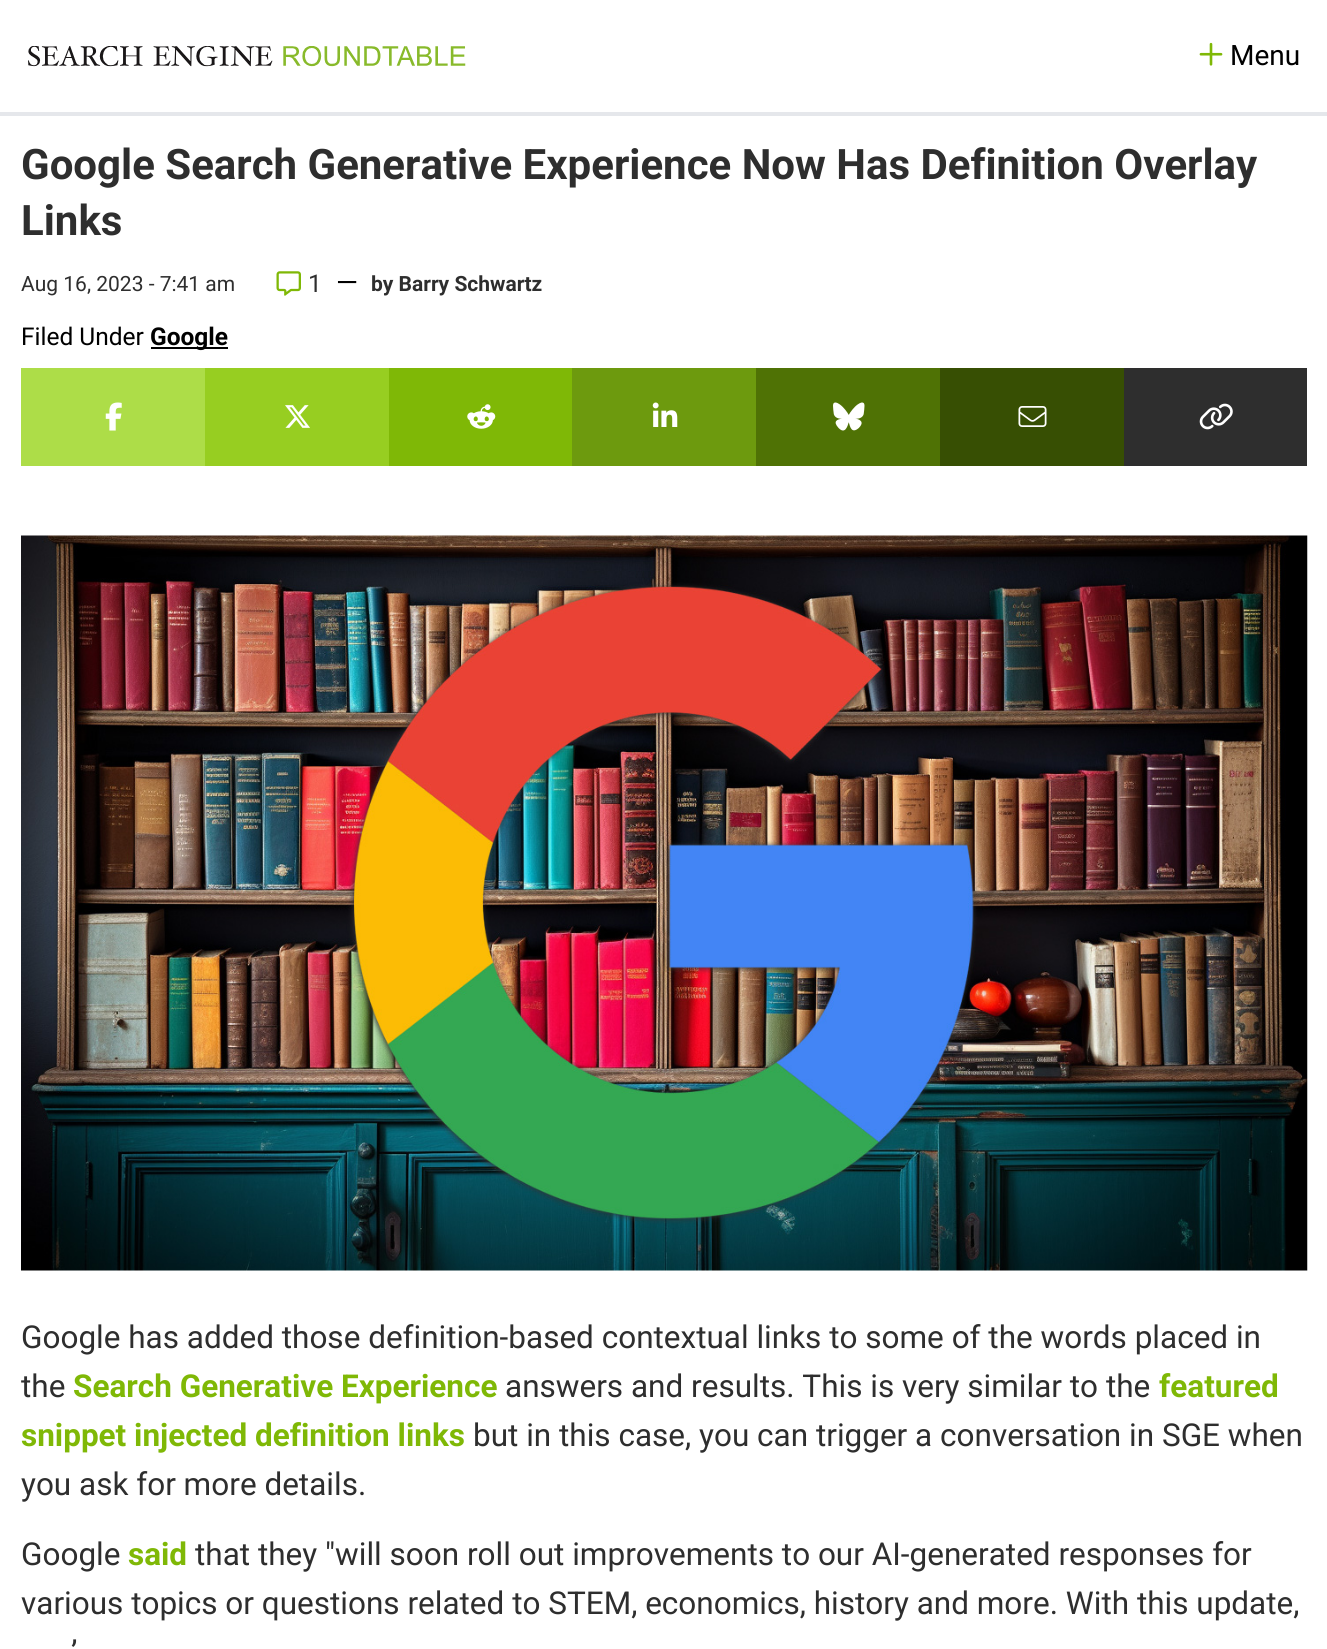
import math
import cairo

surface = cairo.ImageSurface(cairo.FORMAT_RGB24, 1327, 1649)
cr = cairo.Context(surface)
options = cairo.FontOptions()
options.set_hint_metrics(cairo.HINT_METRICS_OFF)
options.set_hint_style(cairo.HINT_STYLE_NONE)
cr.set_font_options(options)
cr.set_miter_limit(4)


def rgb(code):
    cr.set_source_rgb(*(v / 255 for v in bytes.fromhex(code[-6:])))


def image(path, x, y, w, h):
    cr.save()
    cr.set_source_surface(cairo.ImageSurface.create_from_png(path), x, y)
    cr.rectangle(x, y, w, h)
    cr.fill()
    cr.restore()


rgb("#ffffff")
cr.paint()
rgb("#e5e7eb")
cr.rectangle(0, 112, 1327, 4)
cr.fill()
image("img/1.png", 28, 46, 438, 21)
image("img/2.png", 1199, 42, 24, 24)
image("img/3.png", 276, 271, 25, 25)
rgb("#000000")
cr.rectangle(151, 347, 77, 2)
cr.fill()
rgb("#addd48")
cr.rectangle(21, 368, 184, 98)
cr.fill()
image("img/4.png", 105, 402, 17, 29)
rgb("#97ce21")
cr.rectangle(205, 368, 184, 98)
cr.fill()
image("img/5.png", 285, 405, 25, 23)
rgb("#7fb806")
cr.rectangle(389, 368, 183, 98)
cr.fill()
image("img/6.png", 467, 404, 29, 25)
rgb("#6d9a0e")
cr.rectangle(572, 368, 184, 98)
cr.fill()
image("img/7.png", 652, 402, 26, 25)
rgb("#4f7205")
cr.rectangle(756, 368, 184, 98)
cr.fill()
image("img/8.png", 833, 402, 32, 29)
rgb("#374f03")
cr.rectangle(940, 368, 184, 98)
cr.fill()
image("img/9.png", 1018, 406, 29, 21)
rgb("#2e2e2e")
cr.rectangle(1124, 368, 183, 98)
cr.fill()
image("img/10.png", 1199, 403, 34, 27)
image("img/11.png", 21, 535, 1287, 736)
cr.select_font_face("Roboto")
cr.set_font_size(28)
rgb("#000000")
cr.move_to(1230, 65)
cr.show_text("Menu")
cr.select_font_face("Roboto", cairo.FONT_SLANT_NORMAL, cairo.FONT_WEIGHT_BOLD)
cr.set_font_size(42)
rgb("#2e2e2e")
cr.move_to(21, 179)
cr.show_text("Google Search Generative Experience Now Has Definition Overlay")
cr.move_to(21, 235)
cr.show_text("Links")
cr.select_font_face("Roboto")
cr.set_font_size(21)
cr.move_to(21, 291)
cr.show_text("Aug 16, 2023 - 7:41 am")
cr.set_font_size(24.5)
cr.move_to(308, 292)
cr.show_text("1")
cr.set_font_size(28)
rgb("#000000")
cr.move_to(336, 292)
cr.show_text("—")
cr.select_font_face("Roboto", cairo.FONT_SLANT_NORMAL, cairo.FONT_WEIGHT_BOLD)
cr.set_font_size(21)
rgb("#2e2e2e")
cr.move_to(371, 291)
cr.show_text("by Barry Schwartz")
cr.select_font_face("Roboto")
cr.set_font_size(24.5)
rgb("#000000")
cr.move_to(21, 345)
cr.show_text("Filed Under")
cr.select_font_face("Roboto", cairo.FONT_SLANT_NORMAL, cairo.FONT_WEIGHT_BOLD)
cr.move_to(150, 345)
cr.show_text("Google")
cr.select_font_face("Roboto")
cr.set_font_size(31.5)
rgb("#2e2e2e")
cr.move_to(21, 1348)
cr.show_text("Google has added those definition-based contextual links to some of the words placed in")
cr.move_to(21, 1397)
cr.show_text("the")
cr.select_font_face("Roboto", cairo.FONT_SLANT_NORMAL, cairo.FONT_WEIGHT_BOLD)
rgb("#7fb806")
cr.move_to(73, 1397)
cr.show_text("Search Generative Experience")
cr.select_font_face("Roboto")
rgb("#2e2e2e")
cr.move_to(505, 1397)
cr.show_text("answers and results. This is very similar to the")
cr.select_font_face("Roboto", cairo.FONT_SLANT_NORMAL, cairo.FONT_WEIGHT_BOLD)
rgb("#7fb806")
cr.move_to(1159, 1397)
cr.show_text("featured")
cr.move_to(21, 1446)
cr.show_text("snippet injected definition links")
cr.select_font_face("Roboto")
rgb("#2e2e2e")
for x, y, s in [
    (473, 1446, "but in this case, you can trigger a conversation in SGE when"),
    (21, 1495, "you ask for more details."),
    (21, 1565, "Google"),
]:
    cr.move_to(x, y)
    cr.show_text(s)
cr.select_font_face("Roboto", cairo.FONT_SLANT_NORMAL, cairo.FONT_WEIGHT_BOLD)
rgb("#7fb806")
cr.move_to(128, 1565)
cr.show_text("said")
cr.select_font_face("Roboto")
rgb("#2e2e2e")
for x, y, s in [
    (195, 1565, "that they \"will soon roll out improvements to our AI-generated responses for"),
    (21, 1614, "various topics or questions related to STEM, economics, history and more. With this update,"),
    (71, 1663, "’"),
]:
    cr.move_to(x, y)
    cr.show_text(s)
surface.write_to_png("page.png")
